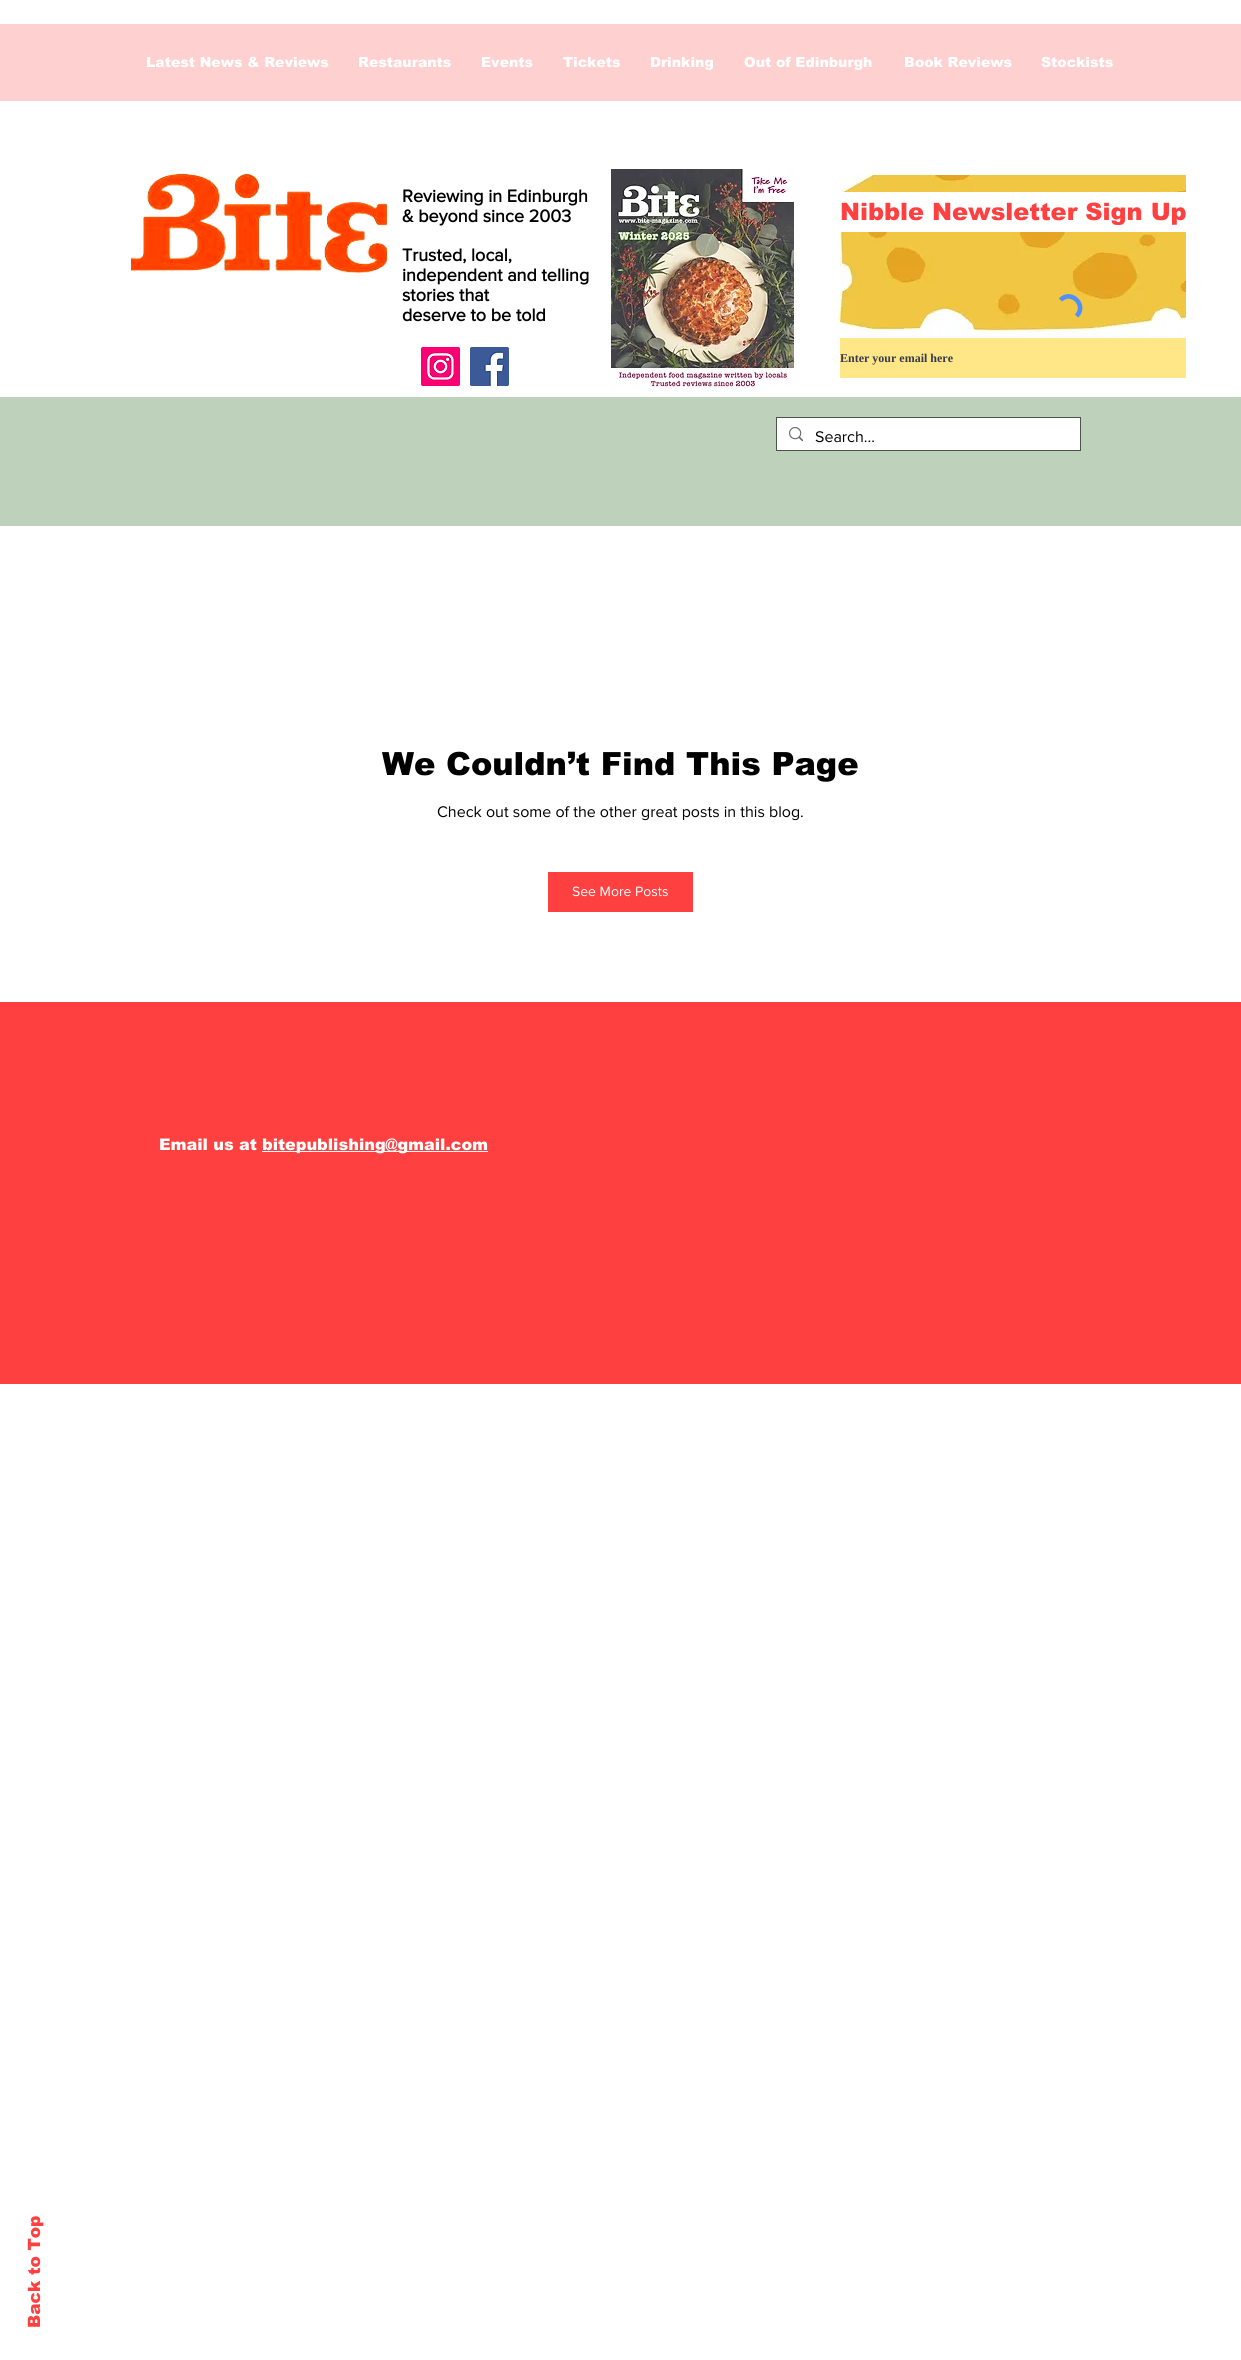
import math
import cairo

surface = cairo.ImageSurface(cairo.FORMAT_RGB24, 1241, 2360)
cr = cairo.Context(surface)
options = cairo.FontOptions()
options.set_hint_metrics(cairo.HINT_METRICS_OFF)
options.set_hint_style(cairo.HINT_STYLE_NONE)
cr.set_font_options(options)
cr.set_miter_limit(4)


def rgb(code):
    cr.set_source_rgb(*(v / 255 for v in bytes.fromhex(code[-6:])))


def image(path, x, y, w, h):
    cr.save()
    cr.set_source_surface(cairo.ImageSurface.create_from_png(path), x, y)
    cr.rectangle(x, y, w, h)
    cr.fill()
    cr.restore()


rgb("#ffffff")
cr.paint()
rgb("#ffd0d0")
cr.rectangle(0, 24, 1241, 77)
cr.fill()
image("img/1.png", 131, 173, 256, 101)
image("img/2.png", 611, 169, 183, 222)
image("img/3.png", 840, 175, 346, 160)
rgb("#ffffff")
cr.rectangle(840, 192, 346, 40)
cr.fill()
cr.new_path()
cr.move_to(1060.5, 300)
cr.curve_to(1071, 289, 1087.5, 305.5, 1076.5, 316)
rgb("#4d90fe")
cr.set_line_width(4.6)
cr.stroke()
rgb("#ffe687")
cr.rectangle(840, 338, 346, 40)
cr.fill()
image("img/4.png", 421, 347, 39, 39)
image("img/5.png", 470, 347, 39, 39)
rgb("#bdd1bb")
cr.rectangle(0, 397, 1241, 129)
cr.fill()
cr.rectangle(776.5, 417.5, 304, 33)
rgb("#4c544b")
cr.set_line_width(1)
cr.stroke()
rgb("#ffffff")
cr.rectangle(777, 418, 303, 32)
cr.fill()
image("img/6.png", 789, 427, 14, 14)
for x, y, w, h, color in [
    (548, 872, 145, 40, "#ff4040"),
    (0, 1002, 1241, 382, "#ff4040"),
    (262, 1151, 226, 1, "#ffffff"),
]:
    rgb(color)
    cr.rectangle(x, y, w, h)
    cr.fill()
cr.select_font_face("arial Black")
cr.set_font_size(14)
for x, y, s in [
    (146, 67, "Latest News & Reviews"),
    (358, 67, "Restaurants"),
    (481, 67, "Events"),
    (563, 67, "Tickets"),
    (650, 67, "Drinking"),
    (744, 67, "Out of Edinburgh"),
    (904, 67, "Book Reviews"),
    (1041, 67, "Stockists"),
]:
    cr.move_to(x, y)
    cr.show_text(s)
cr.select_font_face("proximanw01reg", cairo.FONT_SLANT_NORMAL, cairo.FONT_WEIGHT_BOLD)
cr.set_font_size(18)
rgb("#000000")
for x, y, s in [
    (402, 202, "Reviewing in Edinburgh"),
    (402, 222, "& beyond since 2003"),
    (402, 261, "Trusted, local,"),
    (402, 281, "independent and telling"),
    (402, 301, "stories that"),
    (402, 321, "deserve to be told"),
]:
    cr.move_to(x, y)
    cr.show_text(s)
cr.select_font_face("arial Black")
cr.set_font_size(24)
rgb("#ff4040")
cr.move_to(840, 220)
cr.show_text("Nibble Newsletter Sign Up")
cr.select_font_face("Liberation Serif", cairo.FONT_SLANT_NORMAL, cairo.FONT_WEIGHT_BOLD)
cr.set_font_size(12)
rgb("#373b4d")
cr.move_to(840, 362)
cr.show_text("Enter your email here")
cr.select_font_face("proximanw01reg")
cr.set_font_size(16)
rgb("#000000")
cr.move_to(815, 442)
cr.show_text("Search...")
cr.select_font_face("arial Black")
cr.set_font_size(32)
cr.move_to(382, 775)
cr.show_text("We Couldn’t Find This Page")
cr.select_font_face("proximanw01reg")
cr.set_font_size(16)
cr.move_to(437, 817)
cr.show_text("Check out some of the other great posts in this blog.")
cr.set_font_size(14)
rgb("#ffffff")
cr.move_to(572, 896)
cr.show_text("See More Posts")
cr.select_font_face("arial Black")
cr.set_font_size(16)
cr.move_to(159, 1150)
cr.show_text("Email us at")
cr.move_to(262, 1150)
cr.show_text("bitepublishing@gmail.com")
cr.set_font_size(17)
rgb("#ff4040")
cr.save()
cr.translate(40, 2328)
cr.rotate(-90 * math.pi / 180)
cr.move_to(0, 0)
cr.show_text("Back to Top")
cr.restore()
surface.write_to_png("page.png")
